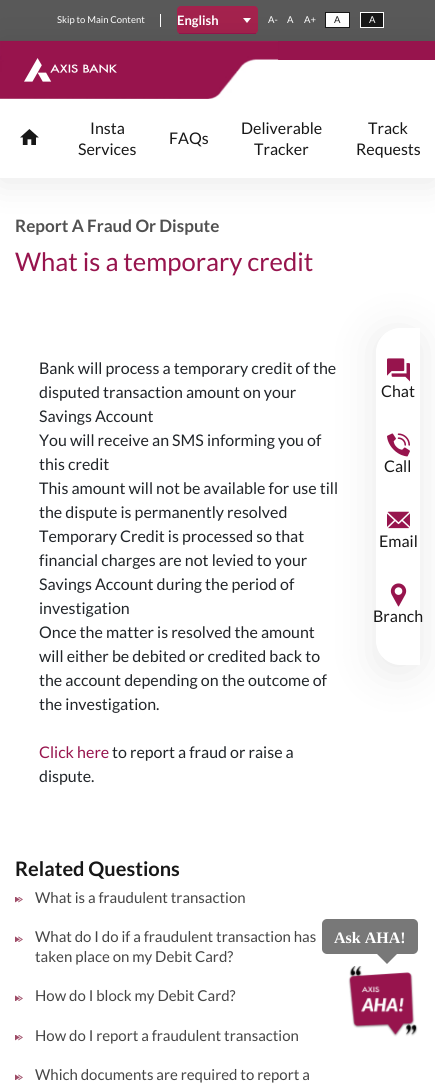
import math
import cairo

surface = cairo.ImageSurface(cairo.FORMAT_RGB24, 435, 1087)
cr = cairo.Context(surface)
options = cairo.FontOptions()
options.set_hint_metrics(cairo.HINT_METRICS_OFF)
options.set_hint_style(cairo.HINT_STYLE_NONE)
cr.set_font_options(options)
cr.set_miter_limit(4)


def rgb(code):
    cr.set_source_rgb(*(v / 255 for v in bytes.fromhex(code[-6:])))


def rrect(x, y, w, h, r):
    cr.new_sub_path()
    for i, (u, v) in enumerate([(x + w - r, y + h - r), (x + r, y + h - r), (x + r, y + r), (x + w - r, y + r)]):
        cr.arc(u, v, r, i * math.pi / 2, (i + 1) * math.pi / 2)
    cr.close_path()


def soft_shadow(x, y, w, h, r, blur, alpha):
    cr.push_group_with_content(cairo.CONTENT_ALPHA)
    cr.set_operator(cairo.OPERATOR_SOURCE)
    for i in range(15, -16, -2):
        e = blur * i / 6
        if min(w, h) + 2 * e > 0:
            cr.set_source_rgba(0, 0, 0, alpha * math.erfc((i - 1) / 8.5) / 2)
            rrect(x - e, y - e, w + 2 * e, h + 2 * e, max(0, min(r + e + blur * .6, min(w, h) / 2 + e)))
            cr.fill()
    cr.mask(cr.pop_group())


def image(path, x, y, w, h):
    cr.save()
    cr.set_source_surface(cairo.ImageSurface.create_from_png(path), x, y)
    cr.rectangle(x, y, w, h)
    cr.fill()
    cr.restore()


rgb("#ffffff")
cr.paint()
rgb("#595959")
cr.rectangle(0, 0, 435, 41)
cr.fill()
rgb("#ffffff")
cr.rectangle(160, 14, 1, 13)
cr.fill()
rgb("#a4224d")
rrect(177, 6, 81, 28, 4)
cr.fill()
rgb("#97144d")
cr.rectangle(179, 33, 77, 1)
cr.fill()
rgb("#ffffff")
cr.new_path()
cr.move_to(243, 18)
cr.line_to(251, 18)
cr.line_to(247, 23)
cr.close_path()
cr.fill()
cr.rectangle(325.5, 12.5, 24, 15)
cr.fill_preserve()
rgb("#171717")
cr.set_line_width(1)
cr.stroke()
cr.rectangle(360.5, 12.5, 23, 15)
cr.fill_preserve()
rgb("#ffffff")
cr.stroke()
cr.save()
cr.set_fill_rule(cairo.FILL_RULE_EVEN_ODD)
cr.new_path()
cr.move_to(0, 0)
cr.line_to(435, 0)
cr.line_to(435, 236)
cr.line_to(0, 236)
cr.close_path()
cr.move_to(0, 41)
cr.line_to(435, 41)
cr.line_to(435, 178)
cr.line_to(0, 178)
cr.close_path()
cr.clip()
rgb("#000000")
soft_shadow(0, 44, 435, 137, 0, 18, 0.1)
cr.restore()
rgb("#97144d")
cr.rectangle(0, 41, 435, 19)
cr.fill()
image("img/1.png", 0, 40, 279, 59)
image("img/2.png", 24, 58, 93, 24)
image("img/3.png", 20, 129, 19, 16)
cr.save()
cr.set_fill_rule(cairo.FILL_RULE_EVEN_ODD)
cr.new_path()
cr.move_to(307, 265)
cr.line_to(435, 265)
cr.line_to(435, 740)
cr.line_to(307, 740)
cr.close_path()
cr.move_to(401, 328)
cr.line_to(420, 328)
cr.line_to(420, 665)
cr.line_to(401, 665)
cr.curve_to(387, 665, 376, 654, 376, 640)
cr.line_to(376, 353)
cr.curve_to(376, 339, 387, 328, 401, 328)
cr.close_path()
cr.clip()
rgb("#000000")
soft_shadow(376, 334, 44, 337, 25, 22.5, 0.09)
cr.restore()
image("img/4.png", 387, 358, 23, 24)
image("img/5.png", 387, 433, 23, 24)
image("img/6.png", 387, 511, 23, 18)
image("img/7.png", 390, 583, 17, 24)
image("img/8.png", 15, 897, 8, 6)
image("img/9.png", 15, 936, 8, 6)
image("img/9.png", 15, 995, 8, 6)
image("img/8.png", 15, 1035, 8, 6)
image("img/9.png", 15, 1074, 8, 6)
rgb("#787878")
rrect(322, 919, 96, 35, 5)
cr.fill()
cr.new_path()
cr.move_to(377, 954)
cr.line_to(397, 954)
cr.line_to(387, 964)
cr.close_path()
cr.fill()
image("img/10.png", 348, 966, 70, 71)
cr.select_font_face("Lato")
cr.set_font_size(9.5)
rgb("#ffffff")
cr.move_to(57, 23)
cr.show_text("Skip to Main Content")
cr.select_font_face("Lato", cairo.FONT_SLANT_NORMAL, cairo.FONT_WEIGHT_BOLD)
cr.set_font_size(13)
cr.move_to(177, 25)
cr.show_text("English")
cr.select_font_face("Lato")
cr.set_font_size(9.5)
for x, y, s in [
    (268, 23, "A-"),
    (287, 23, "A"),
    (304, 23, "A+"),
]:
    cr.move_to(x, y)
    cr.show_text(s)
rgb("#171717")
cr.move_to(334, 23)
cr.show_text("A")
rgb("#ffffff")
cr.move_to(369, 23)
cr.show_text("A")
cr.set_font_size(16)
rgb("#171717")
for x, y, s in [
    (90, 134, "Insta"),
    (78, 155, "Services"),
    (169, 144, "FAQs"),
    (241, 134, "Deliverable"),
    (254, 155, "Tracker"),
    (368, 134, "Track"),
    (356, 155, "Requests"),
]:
    cr.move_to(x, y)
    cr.show_text(s)
cr.select_font_face("Lato", cairo.FONT_SLANT_NORMAL, cairo.FONT_WEIGHT_BOLD)
cr.set_font_size(17.1)
rgb("#515151")
cr.move_to(15, 232)
cr.show_text("Report A Fraud Or Dispute")
cr.select_font_face("Lato")
cr.set_font_size(25.6)
rgb("#97144d")
cr.move_to(15, 271)
cr.show_text("What is a temporary credit")
cr.set_font_size(16)
rgb("#212529")
for x, y, s in [
    (39, 374, "Bank will process a temporary credit of the"),
    (39, 398, "disputed transaction amount on your"),
    (39, 422, "Savings Account"),
    (39, 446, "You will receive an SMS informing you of"),
    (39, 470, "this credit"),
    (39, 494, "This amount will not be available for use till"),
    (39, 518, "the dispute is permanently resolved"),
    (39, 542, "Temporary Credit is processed so that"),
    (39, 566, "financial charges are not levied to your"),
    (39, 590, "Savings Account during the period of"),
    (39, 614, "investigation"),
    (39, 638, "Once the matter is resolved the amount"),
    (39, 662, "will either be debited or credited back to"),
    (39, 686, "the account depending on the outcome of"),
    (39, 710, "the investigation."),
]:
    cr.move_to(x, y)
    cr.show_text(s)
rgb("#171717")
for x, y, s in [
    (381, 397, "Chat"),
    (384, 472, "Call"),
    (379, 547, "Email"),
    (373, 622, "Branch"),
]:
    cr.move_to(x, y)
    cr.show_text(s)
rgb("#97144d")
cr.move_to(39, 758)
cr.show_text("Click here")
rgb("#212529")
cr.move_to(112, 758)
cr.show_text("to report a fraud or raise a")
cr.move_to(39, 782)
cr.show_text("dispute.")
cr.select_font_face("Lato", cairo.FONT_SLANT_NORMAL, cairo.FONT_WEIGHT_BOLD)
cr.set_font_size(20)
rgb("#171717")
cr.move_to(15, 876)
cr.show_text("Related Questions")
cr.select_font_face("Lato")
cr.set_font_size(15)
rgb("#454545")
for x, y, s in [
    (35, 903, "What is a fraudulent transaction"),
    (35, 942, "What do I do if a fraudulent transaction has"),
    (35, 962, "taken place on my Debit Card?"),
    (35, 1001, "How do I block my Debit Card?"),
    (35, 1041, "How do I report a fraudulent transaction"),
    (35, 1080, "Which documents are required to report a"),
]:
    cr.move_to(x, y)
    cr.show_text(s)
cr.select_font_face("Liberation Serif", cairo.FONT_SLANT_NORMAL, cairo.FONT_WEIGHT_BOLD)
cr.set_font_size(16)
rgb("#ffffff")
cr.move_to(334, 943)
cr.show_text("Ask AHA!")
surface.write_to_png("page.png")
